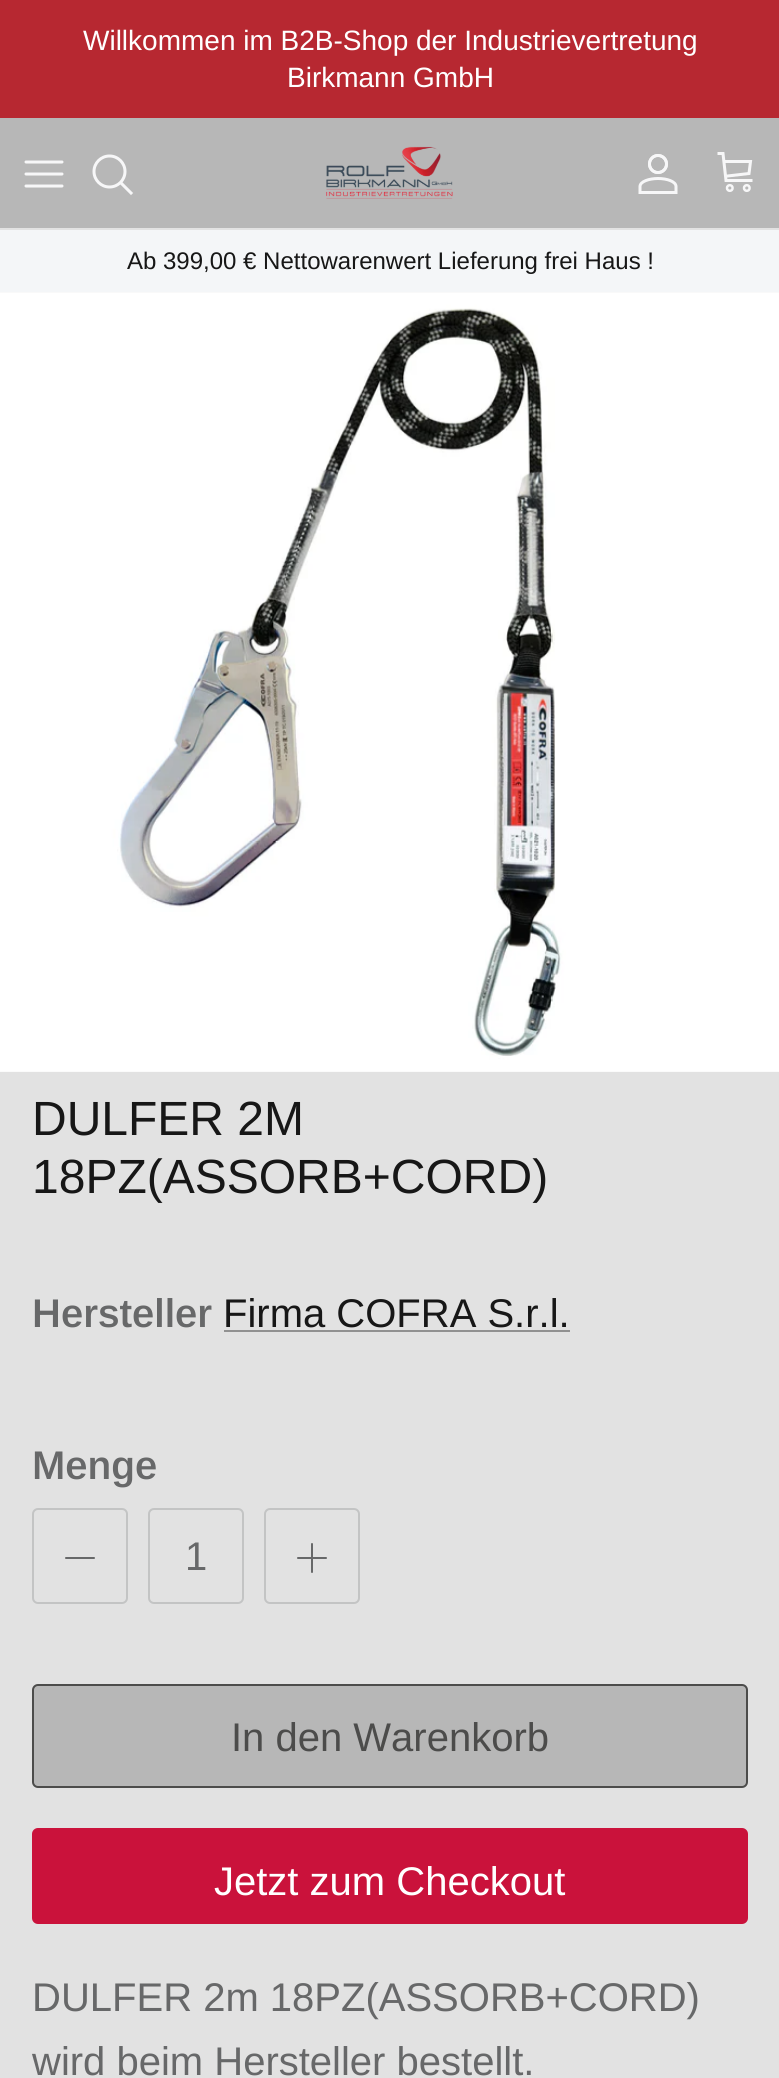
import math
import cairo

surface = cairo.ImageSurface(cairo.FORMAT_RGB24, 779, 2078)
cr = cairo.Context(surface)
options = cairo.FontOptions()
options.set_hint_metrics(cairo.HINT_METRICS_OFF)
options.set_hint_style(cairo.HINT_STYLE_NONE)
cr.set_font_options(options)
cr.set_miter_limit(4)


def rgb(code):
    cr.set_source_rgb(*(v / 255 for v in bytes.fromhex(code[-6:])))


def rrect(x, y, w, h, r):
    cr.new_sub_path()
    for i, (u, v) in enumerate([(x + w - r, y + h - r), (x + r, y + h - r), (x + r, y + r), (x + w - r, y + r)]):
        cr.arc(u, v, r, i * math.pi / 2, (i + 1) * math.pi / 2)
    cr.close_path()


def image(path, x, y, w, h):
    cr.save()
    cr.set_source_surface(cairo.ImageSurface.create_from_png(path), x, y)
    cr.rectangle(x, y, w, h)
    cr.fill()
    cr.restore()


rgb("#e2e2e2")
cr.paint()
rgb("#b72831")
cr.rectangle(0, 0, 779, 118)
cr.fill()
rgb("#b7b7b7")
cr.rectangle(0, 118, 779, 110)
cr.fill()
cr.new_path()
cr.move_to(26, 174)
cr.line_to(62, 174)
cr.move_to(26, 162)
cr.line_to(62, 162)
cr.move_to(26, 186)
cr.line_to(62, 186)
rgb("#f7f7f8")
cr.set_line_width(3)
cr.set_line_cap(cairo.LINE_CAP_ROUND)
cr.set_line_join(cairo.LINE_JOIN_ROUND)
cr.stroke()
cr.arc(109.5, 171.5, 15.5, 0, 2 * math.pi)
cr.set_line_cap(cairo.LINE_CAP_BUTT)
cr.set_line_join(cairo.LINE_JOIN_MITER)
cr.stroke()
cr.new_path()
cr.move_to(122, 184)
cr.line_to(131, 193)
cr.set_line_cap(cairo.LINE_CAP_SQUARE)
cr.stroke()
image("img/1.png", 326, 146, 127, 53)
image("img/2.png", 638, 154, 40, 40)
cr.new_path()
cr.move_to(719, 153.5)
cr.line_to(723, 153.5)
cr.line_to(726, 180.5)
cr.line_to(751, 180.5)
cr.move_to(724.5, 161.5)
cr.line_to(750.5, 161.5)
cr.line_to(749, 173.5)
cr.line_to(727.5, 176)
cr.stroke()
cr.arc(729.8, 188, 2.8, 0, 2 * math.pi)
cr.set_line_width(2.5)
cr.set_line_cap(cairo.LINE_CAP_BUTT)
cr.stroke()
cr.arc(746.8, 188, 2.8, 0, 2 * math.pi)
cr.stroke()
rgb("#f4f6f8")
cr.rectangle(0, 230, 779, 62)
cr.fill()
image("img/3.png", 0, 292, 779, 780)
rgb("#919191")
cr.rectangle(224, 1330, 346, 2)
cr.fill()
rrect(33, 1509, 94, 94, 5)
rgb("#c3c4c4")
cr.set_line_width(2)
cr.stroke()
cr.new_path()
cr.move_to(66, 1558)
cr.line_to(94, 1558)
rgb("#676869")
cr.set_line_cap(cairo.LINE_CAP_ROUND)
cr.set_line_join(cairo.LINE_JOIN_ROUND)
cr.stroke()
rrect(149, 1509, 94, 94, 5)
rgb("#c3c4c4")
cr.set_line_cap(cairo.LINE_CAP_BUTT)
cr.set_line_join(cairo.LINE_JOIN_MITER)
cr.stroke()
rrect(265, 1509, 94, 94, 5)
cr.stroke()
cr.new_path()
cr.move_to(312, 1544)
cr.line_to(312, 1572)
cr.move_to(298, 1558)
cr.line_to(326, 1558)
rgb("#676869")
cr.set_line_cap(cairo.LINE_CAP_ROUND)
cr.set_line_join(cairo.LINE_JOIN_ROUND)
cr.stroke()
rgb("#b7b7b7")
rrect(33, 1685, 714, 102, 5)
cr.fill_preserve()
rgb("#4c4c4b")
cr.set_line_cap(cairo.LINE_CAP_BUTT)
cr.set_line_join(cairo.LINE_JOIN_MITER)
cr.stroke()
rgb("#ca123b")
rrect(33, 1829, 714, 94, 5)
cr.fill_preserve()
cr.stroke()
cr.select_font_face("Arimo")
cr.set_font_size(28)
rgb("#ffffff")
cr.move_to(83, 50)
cr.show_text("Willkommen im B2B-Shop der Industrievertretung")
cr.move_to(287, 87)
cr.show_text("Birkmann GmbH")
cr.set_font_size(24)
rgb("#171717")
cr.move_to(127, 269)
cr.show_text("Ab 399,00 € Nettowarenwert Lieferung frei Haus !")
cr.set_font_size(48)
cr.move_to(32, 1135)
cr.show_text("DULFER 2M")
cr.move_to(32, 1193)
cr.show_text("18PZ(ASSORB+CORD)")
cr.select_font_face("Arimo SemiBold")
cr.set_font_size(40)
rgb("#676869")
cr.move_to(32, 1327)
cr.show_text("Hersteller")
cr.select_font_face("Arimo")
rgb("#171717")
cr.move_to(223, 1327)
cr.show_text("Firma COFRA S.r.l.")
cr.select_font_face("Arimo SemiBold")
rgb("#676869")
cr.move_to(32, 1479)
cr.show_text("Menge")
cr.select_font_face("Arimo")
cr.move_to(185, 1570)
cr.show_text("1")
rgb("#4c4c4b")
cr.move_to(231, 1751)
cr.show_text("In den Warenkorb")
cr.select_font_face("Liberation Sans")
rgb("#ffffff")
cr.move_to(214, 1895)
cr.show_text("Jetzt zum Checkout")
cr.select_font_face("Arimo")
rgb("#676869")
cr.move_to(32, 2011)
cr.show_text("DULFER 2m 18PZ(ASSORB+CORD)")
cr.move_to(32, 2075)
cr.show_text("wird beim Hersteller bestellt.")
surface.write_to_png("page.png")
